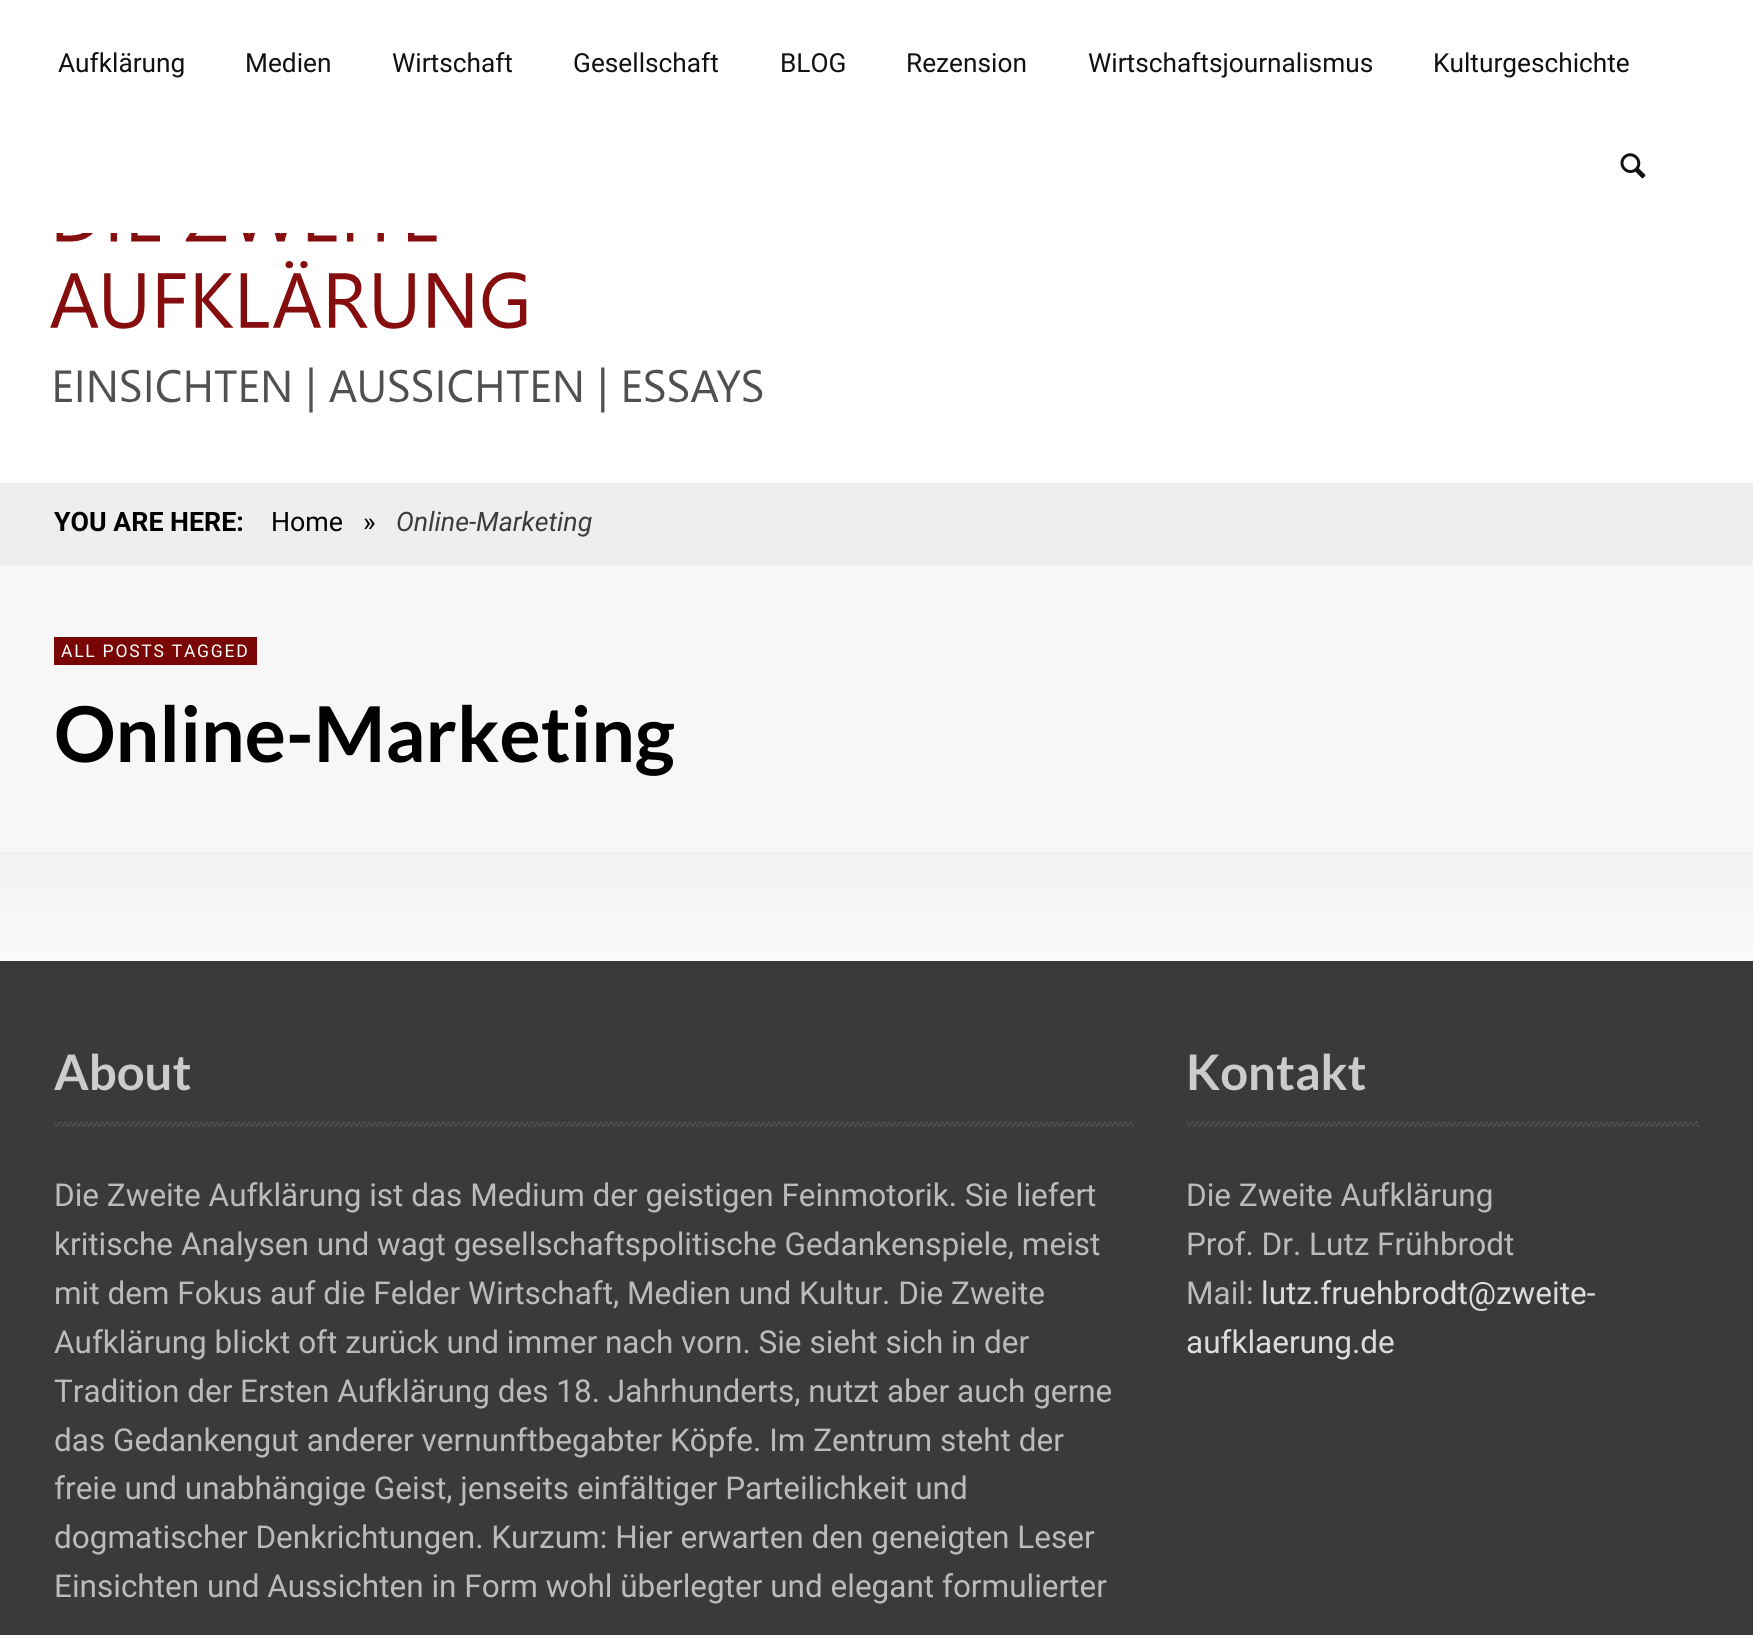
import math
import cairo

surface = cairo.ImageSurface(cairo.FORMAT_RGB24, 1753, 1635)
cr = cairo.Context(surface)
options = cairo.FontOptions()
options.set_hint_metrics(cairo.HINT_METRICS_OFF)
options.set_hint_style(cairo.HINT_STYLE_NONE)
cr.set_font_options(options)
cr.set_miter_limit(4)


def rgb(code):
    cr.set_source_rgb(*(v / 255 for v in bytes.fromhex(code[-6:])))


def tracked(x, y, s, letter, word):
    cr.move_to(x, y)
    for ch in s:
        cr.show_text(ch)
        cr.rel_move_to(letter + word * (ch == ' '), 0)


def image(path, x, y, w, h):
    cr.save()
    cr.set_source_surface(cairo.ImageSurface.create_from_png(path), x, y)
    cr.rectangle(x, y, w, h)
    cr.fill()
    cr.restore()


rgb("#ffffff")
cr.paint()
image("img/1.png", 1620, 153, 26, 26)
image("img/2.png", 50, 233, 713, 180)
for x, y, w, h, color in [
    (0, 483, 1753, 82, "#eeeeee"),
    (0, 565, 1753, 287, "#f7f7f7"),
    (0, 852, 1753, 2, "#eeeeee"),
    (54, 637, 203, 28, "#790505"),
]:
    rgb(color)
    cr.rectangle(x, y, w, h)
    cr.fill()
gradient = cairo.LinearGradient(877, 854, 877, 1029)
gradient.add_color_stop_rgba(0, 0.949, 0.949, 0.949, 1)
gradient.add_color_stop_rgba(1, 1, 1, 1, 1)
cr.set_source(gradient)
cr.rectangle(0, 854, 1753, 107)
cr.fill()
rgb("#3a3a3a")
cr.rectangle(0, 961, 1753, 674)
cr.fill()
image("img/3.png", 54, 1121, 1080, 6)
image("img/4.png", 1186, 1121, 514, 6)
cr.select_font_face("Roboto")
cr.set_font_size(26.25)
rgb("#111111")
for x, y, s in [
    (58, 72, "Aufklärung"),
    (245, 72, "Medien"),
    (392, 72, "Wirtschaft"),
    (573, 72, "Gesellschaft"),
    (780, 72, "BLOG"),
    (906, 72, "Rezension"),
    (1088, 72, "Wirtschaftsjournalismus"),
    (1433, 72, "Kulturgeschichte"),
]:
    cr.move_to(x, y)
    cr.show_text(s)
cr.select_font_face("Roboto", cairo.FONT_SLANT_NORMAL, cairo.FONT_WEIGHT_BOLD)
cr.set_font_size(26.75)
rgb("#000000")
cr.move_to(54, 531)
cr.show_text("YOU ARE HERE:")
cr.select_font_face("Roboto")
cr.move_to(271, 531)
cr.show_text("Home")
cr.move_to(363, 531)
cr.show_text("»")
cr.select_font_face("Roboto", cairo.FONT_SLANT_ITALIC)
rgb("#3c3c3c")
cr.move_to(396, 531)
cr.show_text("Online-Marketing")
cr.select_font_face("Roboto")
cr.set_font_size(17.5)
rgb("#ffffff")
tracked(61, 657, "ALL POSTS TAGGED", 1.75, 0)
cr.select_font_face("Lato", cairo.FONT_SLANT_NORMAL, cairo.FONT_WEIGHT_BOLD)
cr.set_font_size(77)
rgb("#000000")
cr.move_to(54, 762)
cr.show_text("Online-Marketing")
cr.set_font_size(49)
rgb("#cccccc")
cr.move_to(54, 1090)
cr.show_text("About")
cr.select_font_face("Roboto")
cr.set_font_size(31.5)
rgb("#bbbbbb")
for x, y, s in [
    (54, 1206, "Die Zweite Aufklärung ist das Medium der geistigen Feinmotorik. Sie liefert"),
    (54, 1255, "kritische Analysen und wagt gesellschaftspolitische Gedankenspiele, meist"),
    (54, 1304, "mit dem Fokus auf die Felder Wirtschaft, Medien und Kultur. Die Zweite"),
    (54, 1353, "Aufklärung blickt oft zurück und immer nach vorn. Sie sieht sich in der"),
    (54, 1402, "Tradition der Ersten Aufklärung des 18. Jahrhunderts, nutzt aber auch gerne"),
    (54, 1451, "das Gedankengut anderer vernunftbegabter Köpfe. Im Zentrum steht der"),
    (54, 1499, "freie und unabhängige Geist, jenseits einfältiger Parteilichkeit und"),
    (54, 1548, "dogmatischer Denkrichtungen. Kurzum: Hier erwarten den geneigten Leser"),
    (54, 1597, "Einsichten und Aussichten in Form wohl überlegter und elegant formulierter"),
]:
    cr.move_to(x, y)
    cr.show_text(s)
cr.select_font_face("Lato", cairo.FONT_SLANT_NORMAL, cairo.FONT_WEIGHT_BOLD)
cr.set_font_size(49)
rgb("#cccccc")
cr.move_to(1186, 1090)
cr.show_text("Kontakt")
cr.select_font_face("Roboto")
cr.set_font_size(31.5)
rgb("#bbbbbb")
for x, y, s in [
    (1186, 1206, "Die Zweite Aufklärung"),
    (1186, 1255, "Prof. Dr. Lutz Frühbrodt"),
    (1186, 1304, "Mail:"),
]:
    cr.move_to(x, y)
    cr.show_text(s)
rgb("#dddddd")
cr.move_to(1261, 1304)
cr.show_text("lutz.fruehbrodt@zweite-")
cr.move_to(1186, 1353)
cr.show_text("aufklaerung.de")
surface.write_to_png("page.png")
